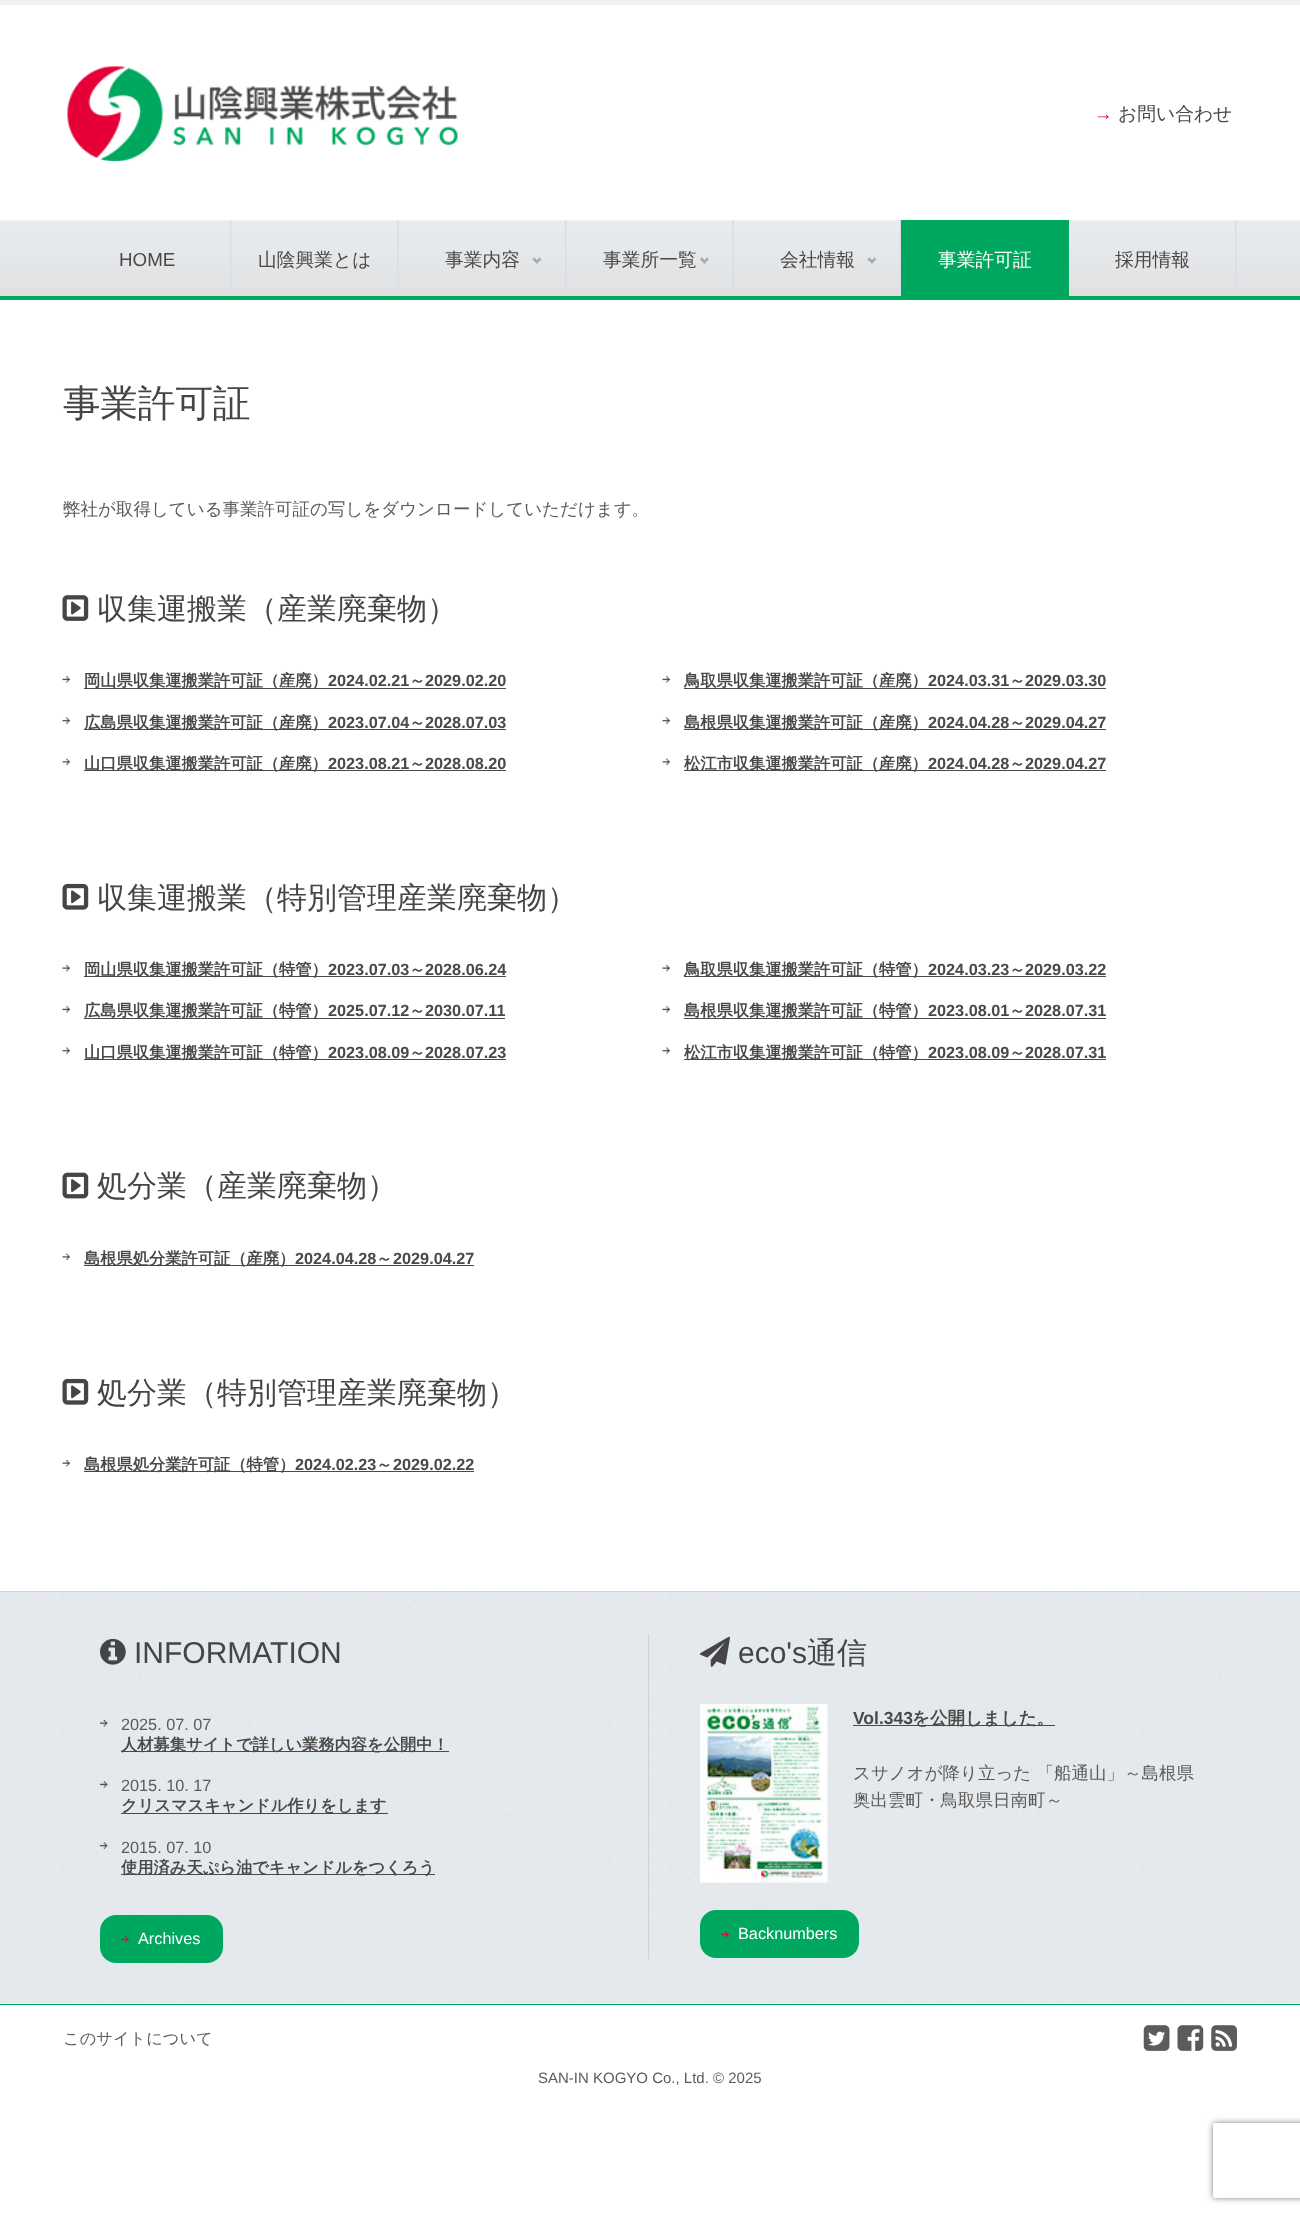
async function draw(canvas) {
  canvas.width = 1300
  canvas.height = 2215
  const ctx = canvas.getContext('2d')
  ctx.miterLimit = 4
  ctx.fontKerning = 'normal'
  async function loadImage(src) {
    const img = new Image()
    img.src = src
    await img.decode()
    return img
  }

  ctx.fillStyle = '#fff'
  ctx.fillRect(0, 0, 1300, 2215)
  ctx.fillStyle = '#f0f2f4'
  ctx.fillRect(0, 0, 1300, 5)
  ctx.drawImage(await loadImage('image0.png'), 67, 66, 391, 96)
  ctx.font = '18.75px Liberation Sans'
  ctx.fillStyle = '#e50038'
  ctx.fillText('→', 1094, 120)
  ctx.font = '500 18.75px WenQuanYi Zen Hei'
  ctx.fillStyle = '#4b4848'
  ctx.fillText('お問い合わせ', 1118, 120)
  ctx.fillStyle = '#e0e0e0'
  ctx.fillRect(0, 288, 1300, 8)
  ctx.drawImage(await loadImage('image1.png'), 0, 220, 1300, 68)
  ctx.fillStyle = '#00a85f'
  ctx.fillRect(0, 296, 1300, 4)
  ctx.drawImage(await loadImage('image2.png'), 230, 220, 2, 70)
  ctx.font = '18.75px Liberation Sans'
  ctx.fillStyle = '#4b4848'
  ctx.fillText('HOME', 119, 266)
  ctx.drawImage(await loadImage('image3.png'), 397, 220, 2, 70)
  ctx.font = '500 18.75px WenQuanYi Zen Hei'
  ctx.fillText('山陰興業とは', 258, 266)
  ctx.drawImage(await loadImage('image2.png'), 565, 220, 2, 70)
  ctx.fillText('事業内容', 445, 266)
  ctx.drawImage(await loadImage('image4.png'), 532, 257, 10, 7)
  ctx.drawImage(await loadImage('image3.png'), 732, 220, 2, 70)
  ctx.fillText('事業所一覧', 603, 266)
  ctx.drawImage(await loadImage('image5.png'), 700, 257, 9, 7)
  ctx.drawImage(await loadImage('image6.png'), 900, 220, 1, 70)
  ctx.fillText('会社情報', 780, 266)
  ctx.drawImage(await loadImage('image7.png'), 867, 257, 10, 7)
  ctx.fillStyle = '#00a85f'
  ctx.fillRect(901, 220, 168, 76)
  ctx.fillStyle = '#fff'
  ctx.fillText('事業許可証', 938, 266)
  ctx.drawImage(await loadImage('image2.png'), 1235, 220, 2, 70)
  ctx.fillStyle = '#4b4848'
  ctx.fillText('採用情報', 1115, 266)
  ctx.font = '500 37.5px WenQuanYi Zen Hei'
  ctx.fillStyle = '#454545'
  ctx.fillText('事業許可証', 63, 416)
  ctx.font = '500 17.5px WenQuanYi Zen Hei'
  ctx.fillStyle = '#5d5a5a'
  ctx.fillText('弊社が取得している事業許可証の写しをダウンロードしていただけます。', 63, 515)
  ctx.drawImage(await loadImage('image8.png'), 62, 595, 27, 26)
  ctx.font = '500 30px WenQuanYi Zen Hei'
  ctx.fillStyle = '#454545'
  ctx.fillText('収集運搬業（産業廃棄物）', 97, 619)
  ctx.drawImage(await loadImage('image9.png'), 62, 676, 8, 7)
  ctx.fillStyle = '#4b4848'
  ctx.fillRect(84, 688, 422, 1)
  ctx.font = 'bold 16.25px WenQuanYi Zen Hei'
  ctx.fillText('岡山県収集運搬業許可証（産廃）', 84, 686)
  ctx.font = 'bold 16.25px Liberation Sans'
  ctx.fillText('2024.02.21', 328, 686)
  ctx.font = 'bold 16.25px WenQuanYi Zen Hei'
  ctx.fillText('～', 409, 686)
  ctx.font = 'bold 16.25px Liberation Sans'
  ctx.fillText('2029.02.20', 425, 686)
  ctx.drawImage(await loadImage('image10.png'), 62, 717, 8, 7)
  ctx.fillRect(84, 729, 422, 1)
  ctx.font = 'bold 16.25px WenQuanYi Zen Hei'
  ctx.fillText('広島県収集運搬業許可証（産廃）', 84, 728)
  ctx.font = 'bold 16.25px Liberation Sans'
  ctx.fillText('2023.07.04', 328, 728)
  ctx.font = 'bold 16.25px WenQuanYi Zen Hei'
  ctx.fillText('～', 409, 728)
  ctx.font = 'bold 16.25px Liberation Sans'
  ctx.fillText('2028.07.03', 425, 728)
  ctx.drawImage(await loadImage('image11.png'), 62, 758, 8, 7)
  ctx.fillRect(84, 770, 422, 1)
  ctx.font = 'bold 16.25px WenQuanYi Zen Hei'
  ctx.fillText('山口県収集運搬業許可証（産廃）', 84, 769)
  ctx.font = 'bold 16.25px Liberation Sans'
  ctx.fillText('2023.08.21', 328, 769)
  ctx.font = 'bold 16.25px WenQuanYi Zen Hei'
  ctx.fillText('～', 409, 769)
  ctx.font = 'bold 16.25px Liberation Sans'
  ctx.fillText('2028.08.20', 425, 769)
  ctx.drawImage(await loadImage('image12.png'), 662, 676, 8, 7)
  ctx.fillRect(684, 688, 422, 1)
  ctx.font = 'bold 16.25px WenQuanYi Zen Hei'
  ctx.fillText('鳥取県収集運搬業許可証（産廃）', 684, 686)
  ctx.font = 'bold 16.25px Liberation Sans'
  ctx.fillText('2024.03.31', 928, 686)
  ctx.font = 'bold 16.25px WenQuanYi Zen Hei'
  ctx.fillText('～', 1009, 686)
  ctx.font = 'bold 16.25px Liberation Sans'
  ctx.fillText('2029.03.30', 1025, 686)
  ctx.drawImage(await loadImage('image13.png'), 662, 717, 8, 7)
  ctx.fillRect(684, 729, 422, 1)
  ctx.font = 'bold 16.25px WenQuanYi Zen Hei'
  ctx.fillText('島根県収集運搬業許可証（産廃）', 684, 728)
  ctx.font = 'bold 16.25px Liberation Sans'
  ctx.fillText('2024.04.28', 928, 728)
  ctx.font = 'bold 16.25px WenQuanYi Zen Hei'
  ctx.fillText('～', 1009, 728)
  ctx.font = 'bold 16.25px Liberation Sans'
  ctx.fillText('2029.04.27', 1025, 728)
  ctx.drawImage(await loadImage('image14.png'), 662, 758, 8, 7)
  ctx.fillRect(684, 770, 422, 1)
  ctx.font = 'bold 16.25px WenQuanYi Zen Hei'
  ctx.fillText('松江市収集運搬業許可証（産廃）', 684, 769)
  ctx.font = 'bold 16.25px Liberation Sans'
  ctx.fillText('2024.04.28', 928, 769)
  ctx.font = 'bold 16.25px WenQuanYi Zen Hei'
  ctx.fillText('～', 1009, 769)
  ctx.font = 'bold 16.25px Liberation Sans'
  ctx.fillText('2029.04.27', 1025, 769)
  ctx.drawImage(await loadImage('image15.png'), 62, 883, 27, 27)
  ctx.font = '500 30px WenQuanYi Zen Hei'
  ctx.fillStyle = '#454545'
  ctx.fillText('収集運搬業（特別管理産業廃棄物）', 97, 908)
  ctx.drawImage(await loadImage('image16.png'), 62, 965, 8, 7)
  ctx.fillStyle = '#4b4848'
  ctx.fillRect(84, 976, 422, 1)
  ctx.font = 'bold 16.25px WenQuanYi Zen Hei'
  ctx.fillText('岡山県収集運搬業許可証（特管）', 84, 975)
  ctx.font = 'bold 16.25px Liberation Sans'
  ctx.fillText('2023.07.03', 328, 975)
  ctx.font = 'bold 16.25px WenQuanYi Zen Hei'
  ctx.fillText('～', 409, 975)
  ctx.font = 'bold 16.25px Liberation Sans'
  ctx.fillText('2028.06.24', 425, 975)
  ctx.drawImage(await loadImage('image9.png'), 62, 1006, 8, 7)
  ctx.fillRect(84, 1018, 421, 1)
  ctx.font = 'bold 16.25px WenQuanYi Zen Hei'
  ctx.fillText('広島県収集運搬業許可証（特管）', 84, 1016)
  ctx.font = 'bold 16.25px Liberation Sans'
  ctx.fillText('2025.07.12', 328, 1016)
  ctx.font = 'bold 16.25px WenQuanYi Zen Hei'
  ctx.fillText('～', 409, 1016)
  ctx.font = 'bold 16.25px Liberation Sans'
  ctx.fillText('2030.07.11', 425, 1016)
  ctx.drawImage(await loadImage('image10.png'), 62, 1047, 8, 7)
  ctx.fillRect(84, 1059, 422, 1)
  ctx.font = 'bold 16.25px WenQuanYi Zen Hei'
  ctx.fillText('山口県収集運搬業許可証（特管）', 84, 1058)
  ctx.font = 'bold 16.25px Liberation Sans'
  ctx.fillText('2023.08.09', 328, 1058)
  ctx.font = 'bold 16.25px WenQuanYi Zen Hei'
  ctx.fillText('～', 409, 1058)
  ctx.font = 'bold 16.25px Liberation Sans'
  ctx.fillText('2028.07.23', 425, 1058)
  ctx.drawImage(await loadImage('image17.png'), 662, 965, 8, 7)
  ctx.fillRect(684, 976, 422, 1)
  ctx.font = 'bold 16.25px WenQuanYi Zen Hei'
  ctx.fillText('鳥取県収集運搬業許可証（特管）', 684, 975)
  ctx.font = 'bold 16.25px Liberation Sans'
  ctx.fillText('2024.03.23', 928, 975)
  ctx.font = 'bold 16.25px WenQuanYi Zen Hei'
  ctx.fillText('～', 1009, 975)
  ctx.font = 'bold 16.25px Liberation Sans'
  ctx.fillText('2029.03.22', 1025, 975)
  ctx.drawImage(await loadImage('image12.png'), 662, 1006, 8, 7)
  ctx.fillRect(684, 1018, 422, 1)
  ctx.font = 'bold 16.25px WenQuanYi Zen Hei'
  ctx.fillText('島根県収集運搬業許可証（特管）', 684, 1016)
  ctx.font = 'bold 16.25px Liberation Sans'
  ctx.fillText('2023.08.01', 928, 1016)
  ctx.font = 'bold 16.25px WenQuanYi Zen Hei'
  ctx.fillText('～', 1009, 1016)
  ctx.font = 'bold 16.25px Liberation Sans'
  ctx.fillText('2028.07.31', 1025, 1016)
  ctx.drawImage(await loadImage('image13.png'), 662, 1047, 8, 7)
  ctx.fillRect(684, 1059, 422, 1)
  ctx.font = 'bold 16.25px WenQuanYi Zen Hei'
  ctx.fillText('松江市収集運搬業許可証（特管）', 684, 1058)
  ctx.font = 'bold 16.25px Liberation Sans'
  ctx.fillText('2023.08.09', 928, 1058)
  ctx.font = 'bold 16.25px WenQuanYi Zen Hei'
  ctx.fillText('～', 1009, 1058)
  ctx.font = 'bold 16.25px Liberation Sans'
  ctx.fillText('2028.07.31', 1025, 1058)
  ctx.drawImage(await loadImage('image18.png'), 62, 1172, 27, 27)
  ctx.font = '500 30px WenQuanYi Zen Hei'
  ctx.fillStyle = '#454545'
  ctx.fillText('処分業（産業廃棄物）', 97, 1196)
  ctx.drawImage(await loadImage('image11.png'), 62, 1253, 8, 7)
  ctx.fillStyle = '#4b4848'
  ctx.fillRect(84, 1265, 390, 1)
  ctx.font = 'bold 16.25px WenQuanYi Zen Hei'
  ctx.fillText('島根県処分業許可証（産廃）', 84, 1264)
  ctx.font = 'bold 16.25px Liberation Sans'
  ctx.fillText('2024.04.28', 295, 1264)
  ctx.font = 'bold 16.25px WenQuanYi Zen Hei'
  ctx.fillText('～', 376, 1264)
  ctx.font = 'bold 16.25px Liberation Sans'
  ctx.fillText('2029.04.27', 393, 1264)
  ctx.drawImage(await loadImage('image15.png'), 62, 1378, 27, 27)
  ctx.font = '500 30px WenQuanYi Zen Hei'
  ctx.fillStyle = '#454545'
  ctx.fillText('処分業（特別管理産業廃棄物）', 97, 1403)
  ctx.drawImage(await loadImage('image16.png'), 62, 1460, 8, 7)
  ctx.fillStyle = '#4b4848'
  ctx.fillRect(84, 1471, 390, 1)
  ctx.font = 'bold 16.25px WenQuanYi Zen Hei'
  ctx.fillText('島根県処分業許可証（特管）', 84, 1470)
  ctx.font = 'bold 16.25px Liberation Sans'
  ctx.fillText('2024.02.23', 295, 1470)
  ctx.font = 'bold 16.25px WenQuanYi Zen Hei'
  ctx.fillText('～', 376, 1470)
  ctx.font = 'bold 16.25px Liberation Sans'
  ctx.fillText('2029.02.22', 393, 1470)
  ctx.drawImage(await loadImage('image19.png'), 0, 1592, 1300, 412)
  ctx.fillStyle = '#d2d1d1'
  ctx.fillRect(0, 1591, 1300, 1)
  ctx.drawImage(await loadImage('image20.png'), 100, 1638, 26, 27)
  ctx.font = '30px Liberation Sans'
  ctx.fillStyle = '#454545'
  ctx.fillText('INFORMATION', 134, 1663)
  ctx.drawImage(await loadImage('image21.png'), 100, 1720, 8, 7)
  ctx.font = '16.25px Liberation Sans'
  ctx.fillStyle = '#5d5a5a'
  ctx.fillText('2025. 07. 07', 121, 1730)
  ctx.fillStyle = '#4b4848'
  ctx.fillRect(121, 1751, 328, 1)
  ctx.font = 'bold 16.25px WenQuanYi Zen Hei'
  ctx.fillText('人材募集サイトで詳しい業務内容を公開中！', 121, 1750)
  ctx.drawImage(await loadImage('image22.png'), 100, 1781, 8, 7)
  ctx.font = '16.25px Liberation Sans'
  ctx.fillStyle = '#5d5a5a'
  ctx.fillText('2015. 10. 17', 121, 1791)
  ctx.fillStyle = '#4b4848'
  ctx.fillRect(121, 1813, 267, 1)
  ctx.font = 'bold 16.25px WenQuanYi Zen Hei'
  ctx.fillText('クリスマスキャンドル作りをします', 121, 1811)
  ctx.drawImage(await loadImage('image23.png'), 100, 1842, 8, 7)
  ctx.font = '16.25px Liberation Sans'
  ctx.fillStyle = '#5d5a5a'
  ctx.fillText('2015. 07. 10', 121, 1853)
  ctx.fillStyle = '#4b4848'
  ctx.fillRect(121, 1874, 314, 1)
  ctx.font = 'bold 16.25px WenQuanYi Zen Hei'
  ctx.fillText('使用済み天ぷら油でキャンドルをつくろう', 121, 1873)
  ctx.fillStyle = '#00a85f'
  ctx.beginPath()
  ctx.roundRect(100, 1915, 123, 48, 16)
  ctx.fill()
  ctx.drawImage(await loadImage('image24.png'), 121, 1936, 8, 7)
  ctx.font = '16.25px Liberation Sans'
  ctx.fillStyle = '#fff'
  ctx.fillText('Archives', 138, 1944)
  ctx.fillStyle = '#d2d1d1'
  ctx.fillRect(648, 1634, 1, 325)
  ctx.drawImage(await loadImage('image25.png'), 700, 1636, 30, 31)
  ctx.font = '30px Liberation Sans'
  ctx.fillStyle = '#454545'
  ctx.fillText('eco\'s', 738, 1663)
  ctx.font = '500 30px WenQuanYi Zen Hei'
  ctx.fillText('通信', 807, 1663)
  ctx.drawImage(await loadImage('image26.png'), 700, 1704, 128, 179)
  ctx.font = 'bold 17.5px Liberation Sans'
  ctx.fillStyle = '#4b4848'
  ctx.fillText('Vol.343', 853, 1724)
  ctx.fillRect(853, 1725, 202, 1)
  ctx.font = 'bold 17.5px WenQuanYi Zen Hei'
  ctx.fillText('を公開しました。', 912, 1724)
  ctx.font = '500 17.5px WenQuanYi Zen Hei'
  ctx.fillStyle = '#5d5a5a'
  ctx.fillText('スサノオが降り立った 「船通山」～島根県', 853, 1779)
  ctx.fillText('奥出雲町・鳥取県日南町～', 853, 1806)
  ctx.fillStyle = '#00a85f'
  ctx.beginPath()
  ctx.roundRect(700, 1910, 159, 48, 16)
  ctx.fill()
  ctx.drawImage(await loadImage('image24.png'), 721, 1931, 8, 7)
  ctx.font = '16.25px Liberation Sans'
  ctx.fillStyle = '#fff'
  ctx.fillText('Backnumbers', 738, 1939)
  ctx.fillStyle = '#00a85f'
  ctx.fillRect(0, 2004, 1300, 1)
  ctx.font = '500 16.25px WenQuanYi Zen Hei'
  ctx.fillStyle = '#5d5a5a'
  ctx.fillText('このサイトについて', 63, 2044)
  ctx.drawImage(await loadImage('image27.png'), 1143, 2025, 27, 26)
  ctx.drawImage(await loadImage('image28.png'), 1177, 2025, 27, 26)
  ctx.drawImage(await loadImage('image29.png'), 1211, 2025, 26, 26)
  ctx.font = '15px Liberation Sans'
  ctx.fillText('SAN-IN KOGYO Co., Ltd. © 2025', 538, 2083)
  ctx.save()
  ctx.beginPath()
  ctx.moveTo(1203, 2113)
  ctx.lineTo(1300, 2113)
  ctx.lineTo(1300, 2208)
  ctx.lineTo(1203, 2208)
  ctx.closePath()
  ctx.moveTo(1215.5, 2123)
  ctx.lineTo(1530.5, 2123)
  ctx.bezierCurveTo(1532, 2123, 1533, 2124, 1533, 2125.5)
  ctx.lineTo(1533, 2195.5)
  ctx.bezierCurveTo(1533, 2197, 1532, 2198, 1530.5, 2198)
  ctx.lineTo(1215.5, 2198)
  ctx.bezierCurveTo(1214, 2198, 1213, 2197, 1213, 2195.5)
  ctx.lineTo(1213, 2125.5)
  ctx.bezierCurveTo(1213, 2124, 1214, 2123, 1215.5, 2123)
  ctx.closePath()
  ctx.clip('evenodd')
  ctx.fillStyle = '#808080'
  ctx.filter = 'blur(3px)'
  ctx.beginPath()
  ctx.roundRect(1213, 2123, 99, 75, 2.5)
  ctx.fill()
  ctx.filter = 'none'
  ctx.restore()
}

draw(document.querySelector('canvas'))
